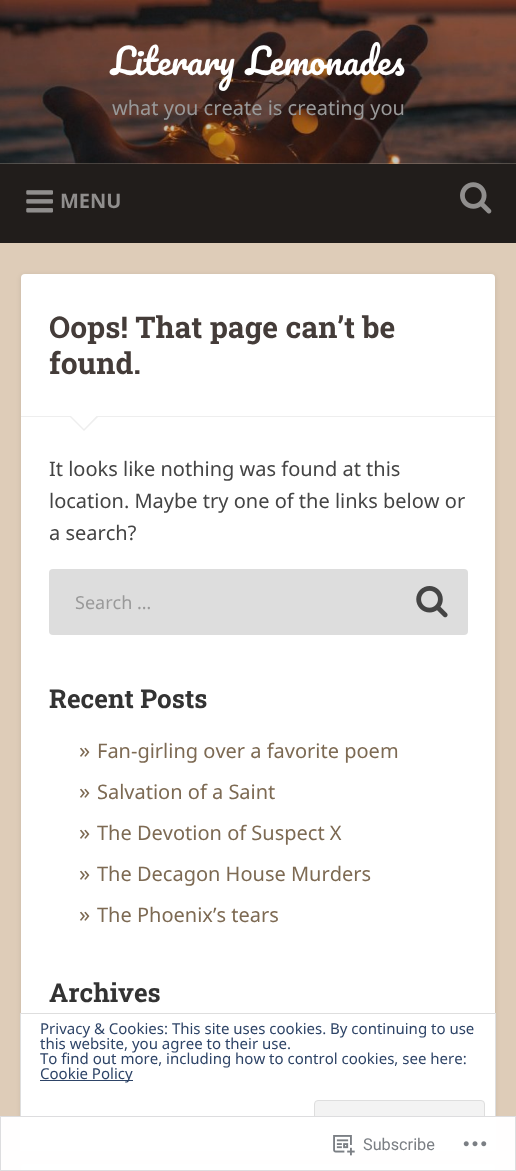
async function draw(canvas) {
  canvas.width = 516
  canvas.height = 1171
  const ctx = canvas.getContext('2d')
  ctx.miterLimit = 4
  ctx.fontKerning = 'none'
  async function loadImage(src) {
    const img = new Image()
    img.src = src
    await img.decode()
    return img
  }

  ctx.fillStyle = '#deccb8'
  ctx.fillRect(0, 0, 516, 1171)
  ctx.drawImage(await loadImage('image0.png'), 0, 0, 516, 164)
  ctx.wordSpacing = '2px'
  ctx.font = '35px Pacifico'
  ctx.fillStyle = '#fff'
  ctx.fillText('Literary Lemonades', 111, 75)
  ctx.wordSpacing = '0px'
  ctx.font = '20px Noto Sans'
  ctx.fillStyle = '#999'
  ctx.fillText('what you create is creating you', 112, 115)
  ctx.fillStyle = '#211d1b'
  ctx.fillRect(0, 164, 516, 79)
  ctx.drawImage(await loadImage('image1.png'), 26, 190, 27, 23)
  ctx.font = 'bold 20px Noto Sans'
  ctx.fillStyle = '#908e8d'
  ctx.fillText('MENU', 60, 208)
  ctx.drawImage(await loadImage('image2.png'), 460, 182, 32, 32)
  ctx.fillStyle = '#0000001a'
  ctx.filter = 'blur(2.5px)'
  ctx.beginPath()
  ctx.roundRect(21, 275, 474, 871, 4)
  ctx.fill()
  ctx.filter = 'none'
  ctx.fillStyle = '#fff'
  ctx.beginPath()
  ctx.roundRect(21, 274, 474, 871, 4)
  ctx.fill()
  ctx.fillStyle = '#eee'
  ctx.fillRect(21, 416, 474, 1)
  ctx.font = 'bold 30px Roboto Slab'
  ctx.fillStyle = '#443c39'
  ctx.fillText('Oops! That page can’t be', 49, 338)
  ctx.fillText('found.', 49, 374)
  ctx.fillStyle = '#eee'
  ctx.beginPath()
  ctx.moveTo(69, 416)
  ctx.lineTo(99, 416)
  ctx.lineTo(84, 431)
  ctx.closePath()
  ctx.fill()
  ctx.fillStyle = '#fff'
  ctx.beginPath()
  ctx.moveTo(70, 415)
  ctx.lineTo(97.5, 415)
  ctx.lineTo(84, 429)
  ctx.closePath()
  ctx.fill()
  ctx.font = '20px Noto Sans'
  ctx.fillStyle = '#444'
  ctx.fillText('It looks like nothing was found at this', 49, 476)
  ctx.fillText('location. Maybe try one of the links below or', 49, 508)
  ctx.fillText('a search?', 49, 540)
  ctx.fillStyle = '#ddd'
  ctx.beginPath()
  ctx.roundRect(49, 569, 419, 66, 4)
  ctx.fill()
  ctx.font = '18px Noto Sans'
  ctx.fillStyle = '#999'
  ctx.fillText('Search …', 75, 609)
  ctx.drawImage(await loadImage('image3.png'), 416, 586, 32, 32)
  ctx.font = 'bold 26px Roboto Slab'
  ctx.fillStyle = '#333'
  ctx.fillText('Recent Posts', 49, 708)
  ctx.font = '22px Noto Sans'
  ctx.fillStyle = '#7d6a53'
  ctx.fillText('»', 79, 758)
  ctx.font = '20px Noto Sans'
  ctx.fillText('Fan-girling over a favorite poem', 97, 758)
  ctx.font = '22px Noto Sans'
  ctx.fillText('»', 79, 799)
  ctx.font = '20px Noto Sans'
  ctx.fillText('Salvation of a Saint', 97, 799)
  ctx.font = '22px Noto Sans'
  ctx.fillText('»', 79, 840)
  ctx.font = '20px Noto Sans'
  ctx.fillText('The Devotion of Suspect X', 97, 840)
  ctx.font = '22px Noto Sans'
  ctx.fillText('»', 79, 881)
  ctx.font = '20px Noto Sans'
  ctx.fillText('The Decagon House Murders', 97, 881)
  ctx.font = '22px Noto Sans'
  ctx.fillText('»', 79, 922)
  ctx.font = '20px Noto Sans'
  ctx.fillText('The Phoenix’s tears', 97, 922)
  ctx.font = 'bold 26px Roboto Slab'
  ctx.fillStyle = '#333'
  ctx.fillText('Archives', 49, 1002)
  ctx.fillStyle = '#0000001a'
  ctx.filter = 'blur(2.5px)'
  ctx.beginPath()
  ctx.roundRect(21, 1165, 474, 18, 4)
  ctx.fill()
  ctx.filter = 'none'
  ctx.fillStyle = '#fff'
  ctx.beginPath()
  ctx.roundRect(21, 1164, 474, 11, 4)
  ctx.fill()
  ctx.fillRect(21, 1141, 474, 9)
  ctx.strokeStyle = '#dedede'
  ctx.strokeRect(20.5, 1013.5, 475, 137)
  ctx.font = '15px Noto Sans'
  ctx.fillStyle = '#2e4467'
  ctx.fillText('Privacy & Cookies: This site uses cookies. By continuing to use', 40, 1034)
  ctx.fillText('this website, you agree to their use.', 40, 1049)
  ctx.fillText('To find out more, including how to control cookies, see here:', 40, 1064)
  ctx.fillRect(40, 1080, 93, 1)
  ctx.fillText('Cookie Policy', 40, 1079)
  ctx.fillStyle = '#f3f3f3'
  ctx.beginPath()
  ctx.roundRect(314.5, 1100.5, 170, 39, 3.5)
  ctx.fill()
  ctx.stroke()
  ctx.fillStyle = '#fffffffa'
  ctx.fillRect(0, 1116, 516, 55)
  ctx.strokeStyle = '#dcdcdefa'
  ctx.strokeRect(0.5, 1116.5, 515, 54)
  ctx.drawImage(await loadImage('image4.png'), 333, 1135, 22, 21)
  ctx.font = '16.25px Roboto'
  ctx.fillStyle = '#7b7f84'
  ctx.fillText('Subscribe', 363, 1150)
  ctx.drawImage(await loadImage('image5.png'), 463, 1141, 24, 6)
}

draw(document.querySelector('canvas'))
